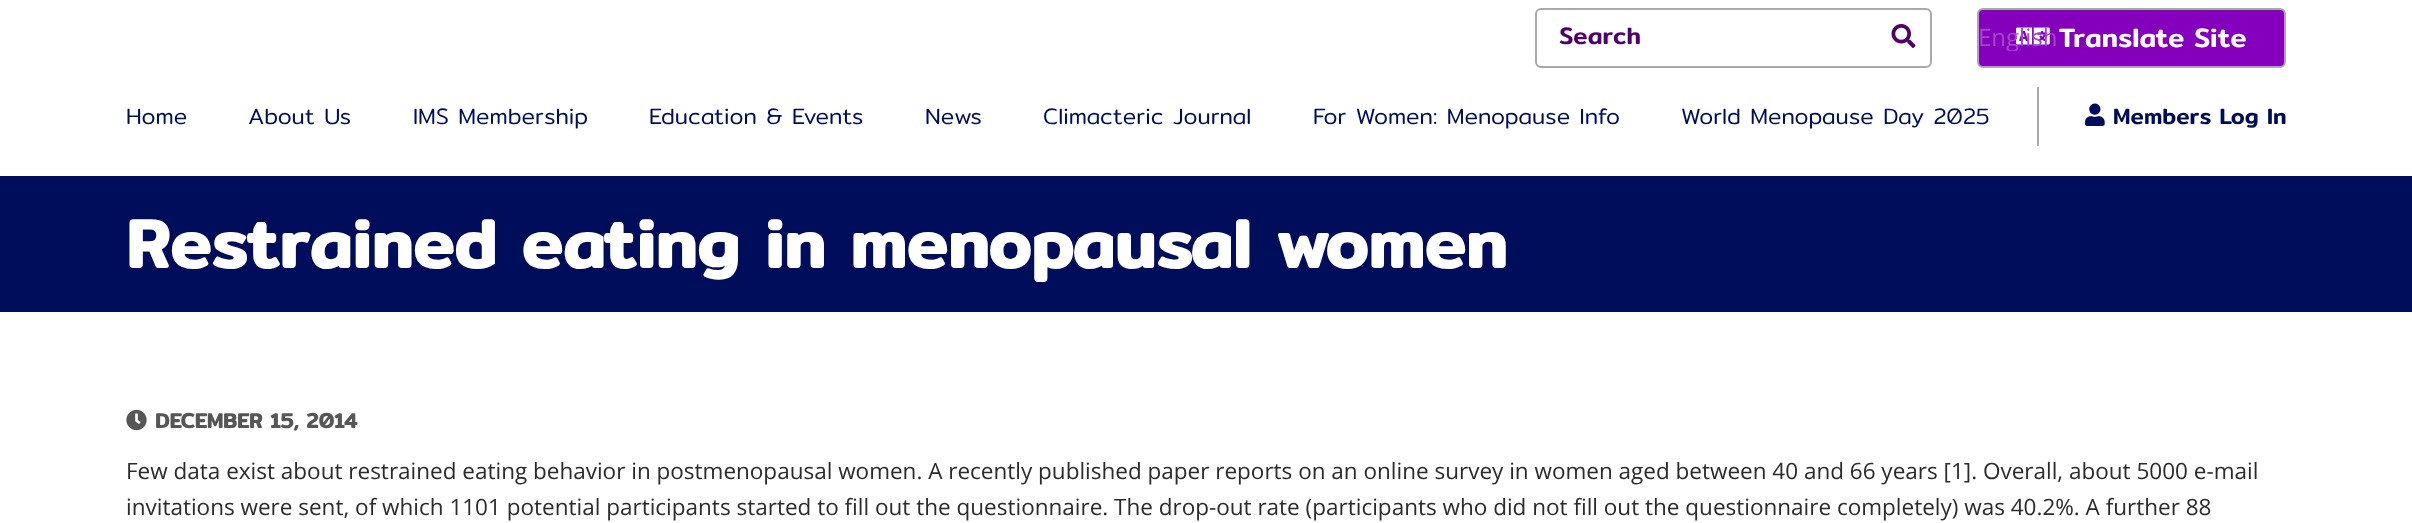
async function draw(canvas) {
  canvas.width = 2412
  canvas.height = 523
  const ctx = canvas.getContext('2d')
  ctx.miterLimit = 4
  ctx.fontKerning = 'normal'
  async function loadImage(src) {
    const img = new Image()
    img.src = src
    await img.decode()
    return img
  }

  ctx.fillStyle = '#fff'
  ctx.fillRect(0, 0, 2412, 523)
  ctx.beginPath()
  ctx.roundRect(1536, 9, 395, 58, 5)
  ctx.strokeStyle = '#a9a9a9'
  ctx.lineWidth = 2
  ctx.stroke()
  ctx.font = '500 24px Mitr'
  ctx.fillStyle = '#4f006f'
  ctx.fillText('Search', 1559, 44)
  ctx.drawImage(await loadImage('image0.png'), 1891, 24, 25, 24)
  ctx.fillStyle = '#8500bc'
  ctx.beginPath()
  ctx.roundRect(1978, 9, 307, 58, 5)
  ctx.fill()
  ctx.stroke()
  ctx.drawImage(await loadImage('image1.png'), 2016, 27, 34, 18)
  ctx.save()
  ctx.beginPath()
  ctx.rect(1979, 24, 306, 27)
  ctx.clip()
  ctx.font = '24px Open Sans'
  ctx.fillStyle = '#a644ce'
  ctx.fillText('English', 1978, 46)
  ctx.restore()
  ctx.font = '500 27px Mitr'
  ctx.fillStyle = '#fff'
  ctx.fillText('Translate Site', 2059, 47)
  ctx.fillStyle = '#a9a9a9'
  ctx.fillRect(2037, 87, 2, 59)
  ctx.font = '300 22.5px Mitr'
  ctx.fillStyle = '#000d5b'
  ctx.fillText('Home', 126, 124)
  ctx.fillText('About Us', 248, 124)
  ctx.fillText('IMS Membership', 413, 124)
  ctx.fillText('Education & Events', 649, 124)
  ctx.fillText('News', 925, 124)
  ctx.fillText('Climacteric Journal', 1043, 124)
  ctx.fillText('For Women: Menopause Info', 1313, 124)
  ctx.fillText('World Menopause Day 2025', 1681, 124)
  ctx.drawImage(await loadImage('image2.png'), 2085, 103, 20, 23)
  ctx.font = '500 22.5px Mitr'
  ctx.fillText('Members Log In', 2113, 124)
  ctx.fillRect(0, 176, 2412, 136)
  ctx.font = 'bold 69px Mitr'
  ctx.fillStyle = '#fff'
  ctx.fillText('Restrained eating in menopausal women', 126, 268)
  ctx.drawImage(await loadImage('image3.png'), 126, 409, 21, 22)
  ctx.font = 'bold 21px Mitr'
  ctx.fillStyle = '#565656'
  ctx.fillText('DECEMBER 15, 2014', 155, 428)
  ctx.font = '22.5px Open Sans'
  ctx.fillStyle = '#2b2b2b'
  ctx.fillText('Few data exist about restrained eating behavior in postmenopausal women. A recently published paper reports on an online survey in women aged between 40 and 66 years [1]. Overall, about 5000 e-mail', 126, 479)
  ctx.fillText('invitations were sent, of which 1101 potential participants started to fill out the questionnaire. The drop-out rate (participants who did not fill out the questionnaire completely) was 40.2%. A further 88', 126, 515)
}

draw(document.querySelector('canvas'))
